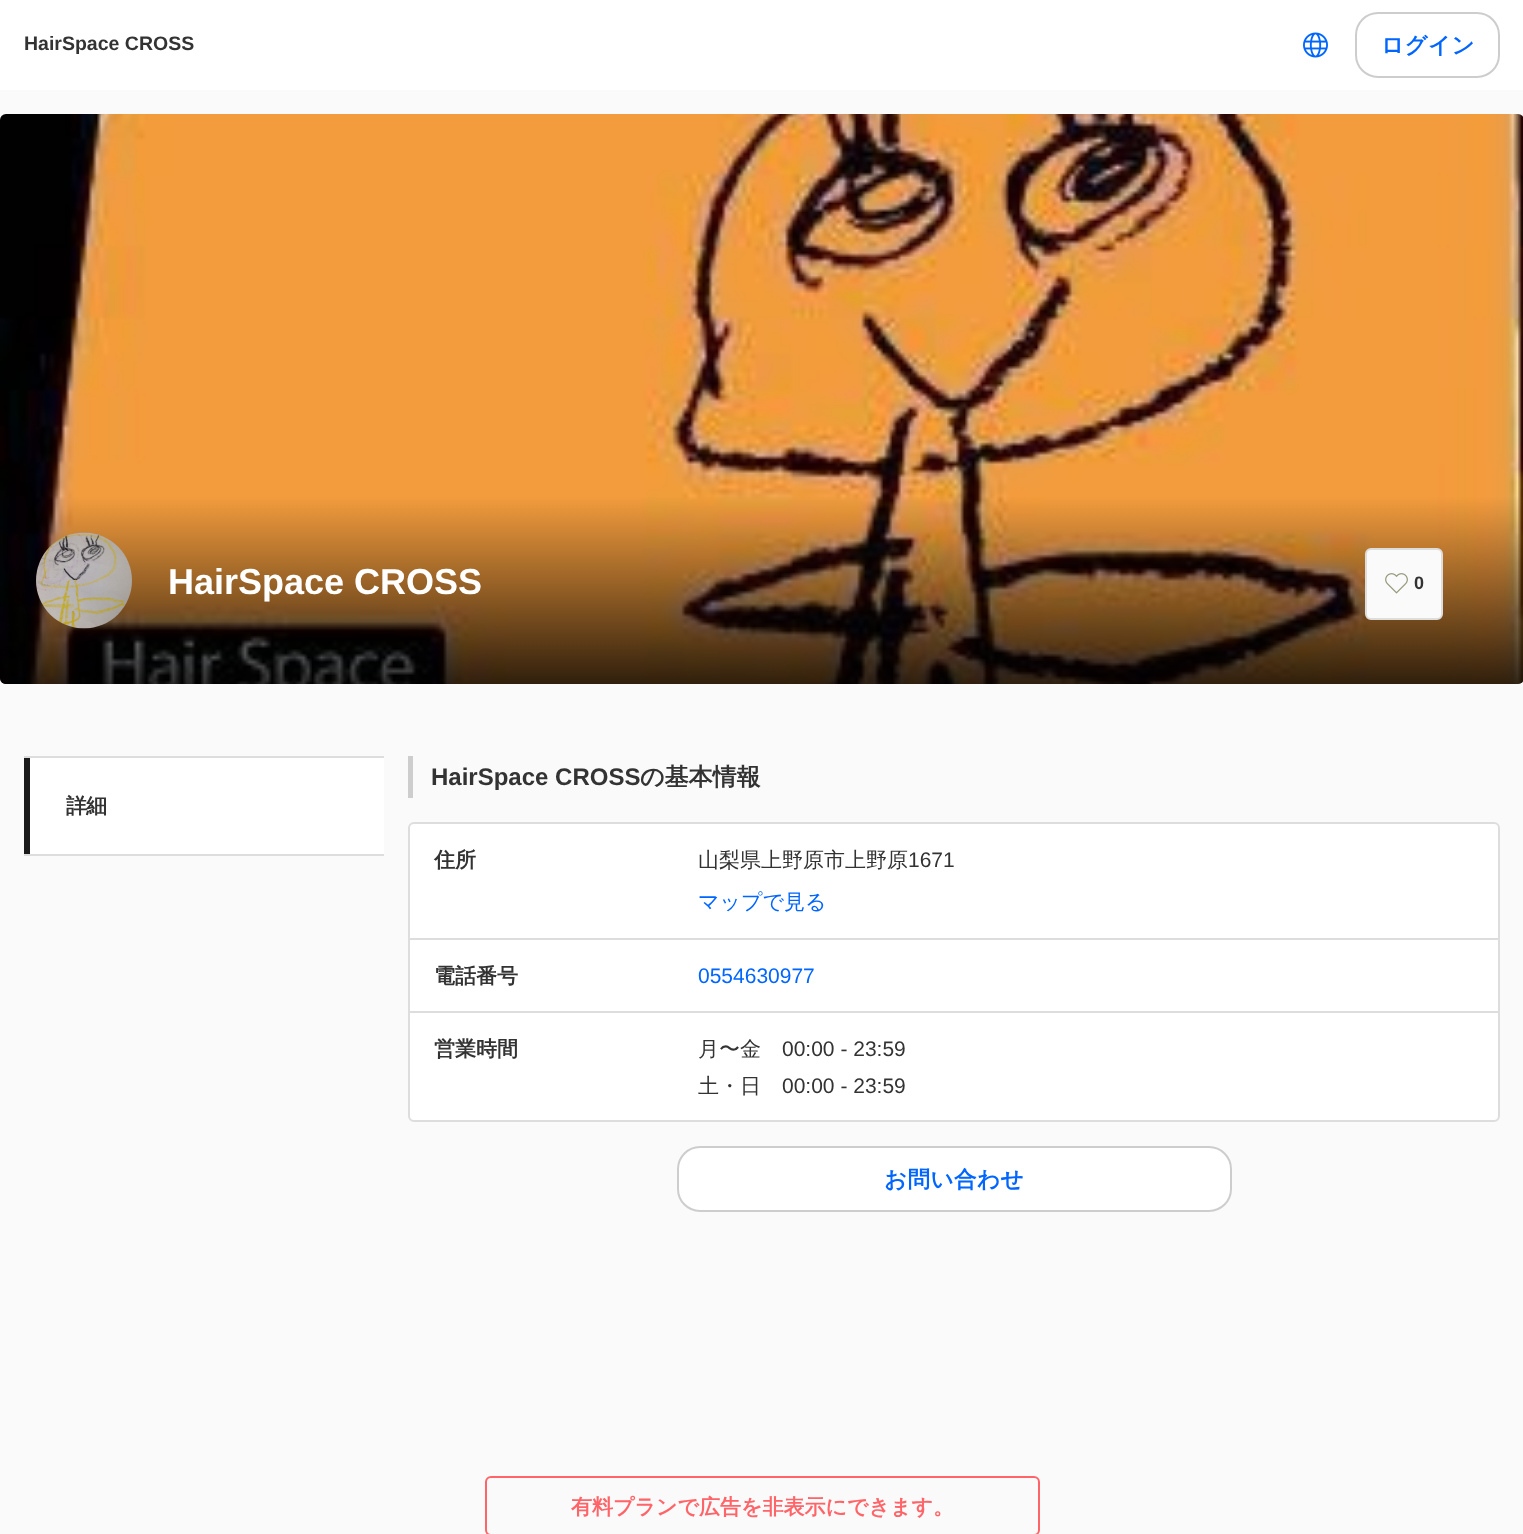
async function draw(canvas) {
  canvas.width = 1523
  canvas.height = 1534
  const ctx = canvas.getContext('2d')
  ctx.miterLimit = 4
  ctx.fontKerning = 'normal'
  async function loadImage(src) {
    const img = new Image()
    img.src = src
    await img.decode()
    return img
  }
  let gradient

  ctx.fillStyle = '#fafafa'
  ctx.fillRect(0, 0, 1523, 1534)
  ctx.fillStyle = '#fff'
  ctx.fillRect(0, 0, 1523, 90)
  ctx.font = 'bold 19.5px Liberation Sans'
  ctx.fillStyle = '#333'
  ctx.fillText('HairSpace CROSS', 24, 50)
  ctx.drawImage(await loadImage('image0.png'), 1303, 32, 25, 26)
  ctx.beginPath()
  ctx.roundRect(1356, 13, 143, 64, 22)
  ctx.strokeStyle = '#cdcdcd'
  ctx.lineWidth = 2
  ctx.stroke()
  ctx.letterSpacing = '0.5px'
  ctx.font = 'bold 22.5px WenQuanYi Zen Hei'
  ctx.fillStyle = '#06f'
  ctx.fillText('ログイン', 1381, 53)
  ctx.drawImage(await loadImage('image1.png'), 0, 114, 1523, 570)
  gradient = ctx.createLinearGradient(762, 496, 762, 684)
  gradient.addColorStop(0, '#00000000')
  gradient.addColorStop(1, '#000000cc')
  ctx.fillStyle = gradient
  ctx.beginPath()
  ctx.moveTo(0, 497)
  ctx.lineTo(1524, 497)
  ctx.lineTo(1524, 678)
  ctx.bezierCurveTo(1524, 681.5, 1521.5, 684, 1518, 684)
  ctx.lineTo(6, 684)
  ctx.bezierCurveTo(2.5, 684, 0, 681.5, 0, 678)
  ctx.closePath()
  ctx.fill()
  ctx.drawImage(await loadImage('image2.png'), 36, 532, 96, 97)
  ctx.letterSpacing = '0px'
  ctx.font = 'bold 36px Liberation Sans'
  ctx.fillStyle = '#fff'
  ctx.fillText('HairSpace CROSS', 168, 594)
  ctx.fillStyle = '#fafafa'
  ctx.beginPath()
  ctx.roundRect(1366, 549, 76, 70, 5)
  ctx.fill()
  ctx.strokeStyle = '#ddd'
  ctx.stroke()
  ctx.drawImage(await loadImage('image3.png'), 1385, 573, 23, 21)
  ctx.font = 'bold 18px Liberation Sans'
  ctx.fillStyle = '#333'
  ctx.fillText('0', 1414, 589)
  ctx.fillStyle = '#fff'
  ctx.fillRect(30, 758, 354, 96)
  ctx.fillStyle = '#ddd'
  ctx.fillRect(24, 854, 360, 2)
  ctx.fillRect(24, 756, 360, 2)
  ctx.fillStyle = '#1b1b1b'
  ctx.fillRect(24, 758, 6, 96)
  ctx.letterSpacing = '-1px'
  ctx.font = 'bold 21px WenQuanYi Zen Hei'
  ctx.fillStyle = '#333'
  ctx.fillText('詳細', 66, 813)
  ctx.fillStyle = '#cdcdcd'
  ctx.fillRect(408, 756, 5, 42)
  ctx.letterSpacing = '0px'
  ctx.font = 'bold 24px Liberation Sans'
  ctx.fillStyle = '#333'
  ctx.fillText('HairSpace CROSS', 431, 785)
  ctx.font = 'bold 24px WenQuanYi Zen Hei'
  ctx.fillText('の基本情報', 640, 785)
  ctx.fillStyle = '#fff'
  ctx.beginPath()
  ctx.roundRect(409, 823, 1090, 298, 5)
  ctx.fill()
  ctx.stroke()
  ctx.font = 'bold 21px WenQuanYi Zen Hei'
  ctx.fillStyle = '#333'
  ctx.fillText('住所', 434, 867)
  ctx.font = '500 21px WenQuanYi Zen Hei'
  ctx.fillText('山梨県上野原市上野原', 698, 867)
  ctx.font = '21px Liberation Sans'
  ctx.fillText('1671', 908, 867)
  ctx.font = '500 21px WenQuanYi Zen Hei'
  ctx.fillStyle = '#06f'
  ctx.fillText('マップで見る', 698, 909)
  ctx.fillStyle = '#ddd'
  ctx.fillRect(410, 938, 1089, 2)
  ctx.font = 'bold 21px WenQuanYi Zen Hei'
  ctx.fillStyle = '#333'
  ctx.fillText('電話番号', 434, 983)
  ctx.font = '21px Liberation Sans'
  ctx.fillStyle = '#06f'
  ctx.fillText('0554630977', 698, 983)
  ctx.fillStyle = '#ddd'
  ctx.fillRect(410, 1011, 1089, 2)
  ctx.font = 'bold 21px WenQuanYi Zen Hei'
  ctx.fillStyle = '#333'
  ctx.fillText('営業時間', 434, 1056)
  ctx.font = '500 21px WenQuanYi Zen Hei'
  ctx.fillText('月〜金', 698, 1056)
  ctx.font = '21px Liberation Sans'
  ctx.fillText('00:00 - 23:59', 782, 1056)
  ctx.font = '500 21px WenQuanYi Zen Hei'
  ctx.fillText('土・日', 698, 1093)
  ctx.font = '21px Liberation Sans'
  ctx.fillText('00:00 - 23:59', 782, 1093)
  ctx.fillStyle = '#fff'
  ctx.beginPath()
  ctx.roundRect(678, 1147, 553, 64, 22)
  ctx.fill()
  ctx.strokeStyle = '#cdcdcd'
  ctx.stroke()
  ctx.letterSpacing = '0.5px'
  ctx.font = 'bold 22.5px WenQuanYi Zen Hei'
  ctx.fillStyle = '#06f'
  ctx.fillText('お問い合わせ', 884, 1187)
  ctx.beginPath()
  ctx.roundRect(486, 1477, 553, 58, 5)
  ctx.strokeStyle = '#ff6469'
  ctx.stroke()
  ctx.letterSpacing = '0px'
  ctx.font = 'bold 21px WenQuanYi Zen Hei'
  ctx.fillStyle = '#ff6469'
  ctx.fillText('有料プランで広告を非表示にできます。', 571, 1514)
}

draw(document.querySelector('canvas'))
